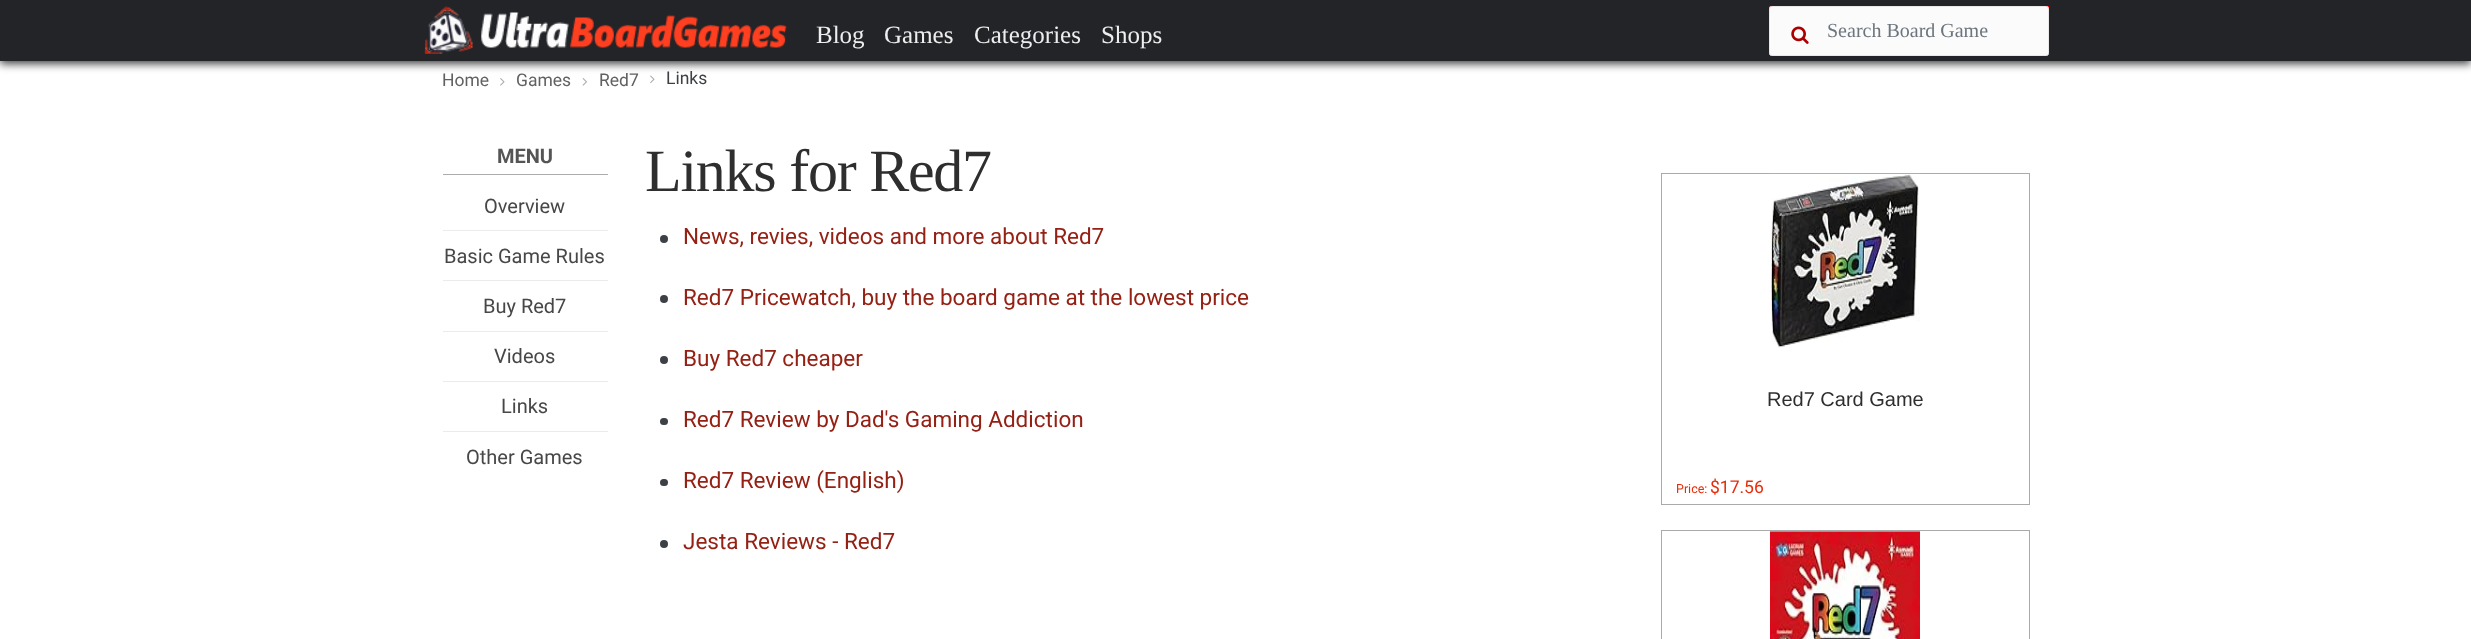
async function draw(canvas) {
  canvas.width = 2471
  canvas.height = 639
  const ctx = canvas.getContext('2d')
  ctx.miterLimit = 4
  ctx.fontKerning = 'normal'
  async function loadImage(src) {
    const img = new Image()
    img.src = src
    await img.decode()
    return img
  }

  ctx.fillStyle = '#fff'
  ctx.fillRect(0, 0, 2471, 639)
  ctx.drawImage(await loadImage('image4.png'), 650, 75, 5, 8)
  ctx.fillStyle = '#444'
  ctx.filter = 'blur(4px)'
  ctx.beginPath()
  ctx.rect(0, 3, 2471, 61)
  ctx.fill()
  ctx.filter = 'none'
  ctx.fillStyle = '#232428'
  ctx.fillRect(0, 0, 2471, 61)
  ctx.drawImage(await loadImage('image0.png'), 423, 6, 364, 49)
  ctx.font = '25px Liberation Serif'
  ctx.fillStyle = '#eee'
  ctx.fillText('Blog', 816, 43)
  ctx.fillText('Games', 884, 43)
  ctx.fillText('Categories', 974, 43)
  ctx.fillText('Shops', 1101, 43)
  ctx.fillStyle = '#f00'
  ctx.fillRect(1769, 6, 280, 3)
  ctx.fillStyle = '#fbfbfb'
  ctx.beginPath()
  ctx.roundRect(1769.5, 6.5, 279, 49, 2)
  ctx.fill()
  ctx.strokeStyle = '#e8e8e8'
  ctx.stroke()
  ctx.drawImage(await loadImage('image1.png'), 1791, 26, 18, 18)
  ctx.font = '20px Liberation Serif'
  ctx.fillStyle = '#6c757d'
  ctx.fillText('Search Board Game', 1827, 37)
  ctx.font = '17.5px Roboto'
  ctx.fillStyle = '#616161'
  ctx.fillText('Home', 442, 86)
  ctx.drawImage(await loadImage('image2.png'), 500, 78, 5, 8)
  ctx.fillText('Games', 516, 86)
  ctx.drawImage(await loadImage('image3.png'), 582, 78, 5, 8)
  ctx.fillText('Red7', 599, 86)
  ctx.fillStyle = '#3d4045'
  ctx.fillText('Links', 666, 84)
  ctx.fillStyle = '#adacac'
  ctx.fillRect(443, 174, 165, 1)
  ctx.font = 'bold 20px Roboto'
  ctx.fillStyle = '#555'
  ctx.fillText('MENU', 497, 163)
  ctx.fillStyle = '#ebebeb'
  ctx.fillRect(443, 230, 165, 1)
  ctx.font = '20px Roboto'
  ctx.fillStyle = '#474747'
  ctx.fillText('Overview', 484, 213)
  ctx.fillStyle = '#ebebeb'
  ctx.fillRect(443, 280, 165, 1)
  ctx.fillStyle = '#474747'
  ctx.fillText('Basic Game Rules', 444, 263)
  ctx.fillStyle = '#ebebeb'
  ctx.fillRect(443, 331, 165, 1)
  ctx.fillStyle = '#474747'
  ctx.fillText('Buy Red7', 483, 313)
  ctx.fillStyle = '#ebebeb'
  ctx.fillRect(443, 381, 165, 1)
  ctx.fillStyle = '#474747'
  ctx.fillText('Videos', 494, 363)
  ctx.fillStyle = '#ebebeb'
  ctx.fillRect(443, 431, 165, 1)
  ctx.fillStyle = '#474747'
  ctx.fillText('Links', 501, 413)
  ctx.fillText('Other Games', 466, 464)
  ctx.letterSpacing = '-1.25px'
  ctx.font = '60px Liberation Serif'
  ctx.fillStyle = '#2e2e2e'
  ctx.fillText('Links for Red7', 645, 191)
  ctx.fillStyle = '#3d4045'
  ctx.beginPath()
  ctx.arc(664, 239, 4, 0, 2 * Math.PI)
  ctx.fill()
  ctx.letterSpacing = '0px'
  ctx.font = '22.5px Roboto'
  ctx.fillStyle = '#952014'
  ctx.fillText('News, revies, videos and more about Red7', 683, 244)
  ctx.fillStyle = '#3d4045'
  ctx.beginPath()
  ctx.arc(664, 299, 4, 0, 2 * Math.PI)
  ctx.fill()
  ctx.fillStyle = '#952014'
  ctx.fillText('Red7 Pricewatch, buy the board game at the lowest price', 683, 305)
  ctx.fillStyle = '#3d4045'
  ctx.beginPath()
  ctx.arc(664, 360, 4, 0, 2 * Math.PI)
  ctx.fill()
  ctx.fillStyle = '#952014'
  ctx.fillText('Buy Red7 cheaper', 683, 366)
  ctx.fillStyle = '#3d4045'
  ctx.beginPath()
  ctx.roundRect(660, 418, 8, 7, 3.5)
  ctx.fill()
  ctx.fillStyle = '#952014'
  ctx.fillText('Red7 Review by Dad\'s Gaming Addiction', 683, 427)
  ctx.fillStyle = '#3d4045'
  ctx.beginPath()
  ctx.roundRect(660, 479, 8, 7, 3.5)
  ctx.fill()
  ctx.fillStyle = '#952014'
  ctx.fillText('Red7 Review (English)', 683, 488)
  ctx.fillStyle = '#3d4045'
  ctx.beginPath()
  ctx.arc(664, 544, 4, 0, 2 * Math.PI)
  ctx.fill()
  ctx.fillStyle = '#952014'
  ctx.fillText('Jesta Reviews - Red7', 683, 549)
  ctx.strokeStyle = '#aaa'
  ctx.strokeRect(1661.5, 173.5, 368, 331)
  ctx.drawImage(await loadImage('image5.png'), 1770, 173, 150, 175)
  ctx.font = '20px Liberation Sans'
  ctx.fillStyle = '#2e2e2e'
  ctx.fillText('Red7 Card Game', 1767, 406)
  ctx.font = '12.5px Roboto'
  ctx.fillStyle = '#e82b09'
  ctx.fillText('Price:', 1676, 493)
  ctx.font = '17.5px Roboto'
  ctx.fillText('$17.56', 1710, 493)
  ctx.strokeRect(1661.5, 530.5, 368, 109)
  ctx.drawImage(await loadImage('image6.png'), 1770, 531, 150, 108)
}

draw(document.querySelector('canvas'))
